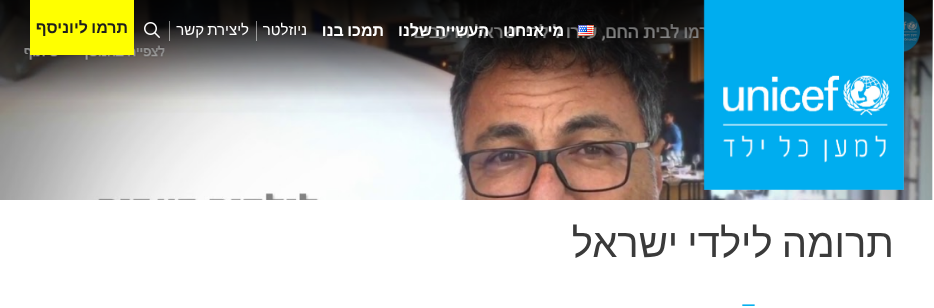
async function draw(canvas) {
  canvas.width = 934
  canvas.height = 308
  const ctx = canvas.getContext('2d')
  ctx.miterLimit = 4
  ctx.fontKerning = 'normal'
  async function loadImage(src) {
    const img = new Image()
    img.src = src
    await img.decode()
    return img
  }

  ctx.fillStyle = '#fff'
  ctx.fillRect(0, 0, 934, 308)
  ctx.drawImage(await loadImage('image0.png'), 0, 0, 933, 200)
  ctx.drawImage(await loadImage('image1.png'), 703, 0, 201, 190)
  ctx.drawImage(await loadImage('image2.png'), 578, 25, 16, 11)
  ctx.wordSpacing = '-1px'
  ctx.direction = 'rtl'
  ctx.font = 'bold 16px Liberation Sans'
  ctx.fillText('מי אנחנו', 564, 36)
  ctx.fillText('העשייה שלנו', 489, 36)
  ctx.fillText('תמכו בנו', 384, 36)
  ctx.wordSpacing = '0px'
  ctx.font = '15px Liberation Sans'
  ctx.fillText('ניוזלטר', 307, 35)
  ctx.fillStyle = '#ffffff80'
  ctx.fillRect(256, 21, 1, 20)
  ctx.wordSpacing = '-1px'
  ctx.fillStyle = '#fff'
  ctx.fillText('ליצירת קשר', 249, 35)
  ctx.fillStyle = '#ffffff80'
  ctx.fillRect(169, 21, 1, 20)
  ctx.drawImage(await loadImage('image3.png'), 144, 22, 16, 16)
  ctx.fillStyle = '#ff0'
  ctx.fillRect(30, 0, 104, 55)
  ctx.font = 'bold 16px Liberation Sans'
  ctx.fillStyle = '#1e1e1e'
  ctx.fillText('תרמו ליוניסף', 128, 33)
  ctx.wordSpacing = '-2px'
  ctx.font = '40px Liberation Sans'
  ctx.fillStyle = '#3a3a3a'
  ctx.fillText('תרומה לילדי ישראל', 894, 257)
  ctx.wordSpacing = '0px'
  ctx.font = '300 30px Roboto Condensed'
  ctx.fillStyle = '#00aeef'
  ctx.fillText('–', 757, 316)
}

draw(document.querySelector('canvas'))
